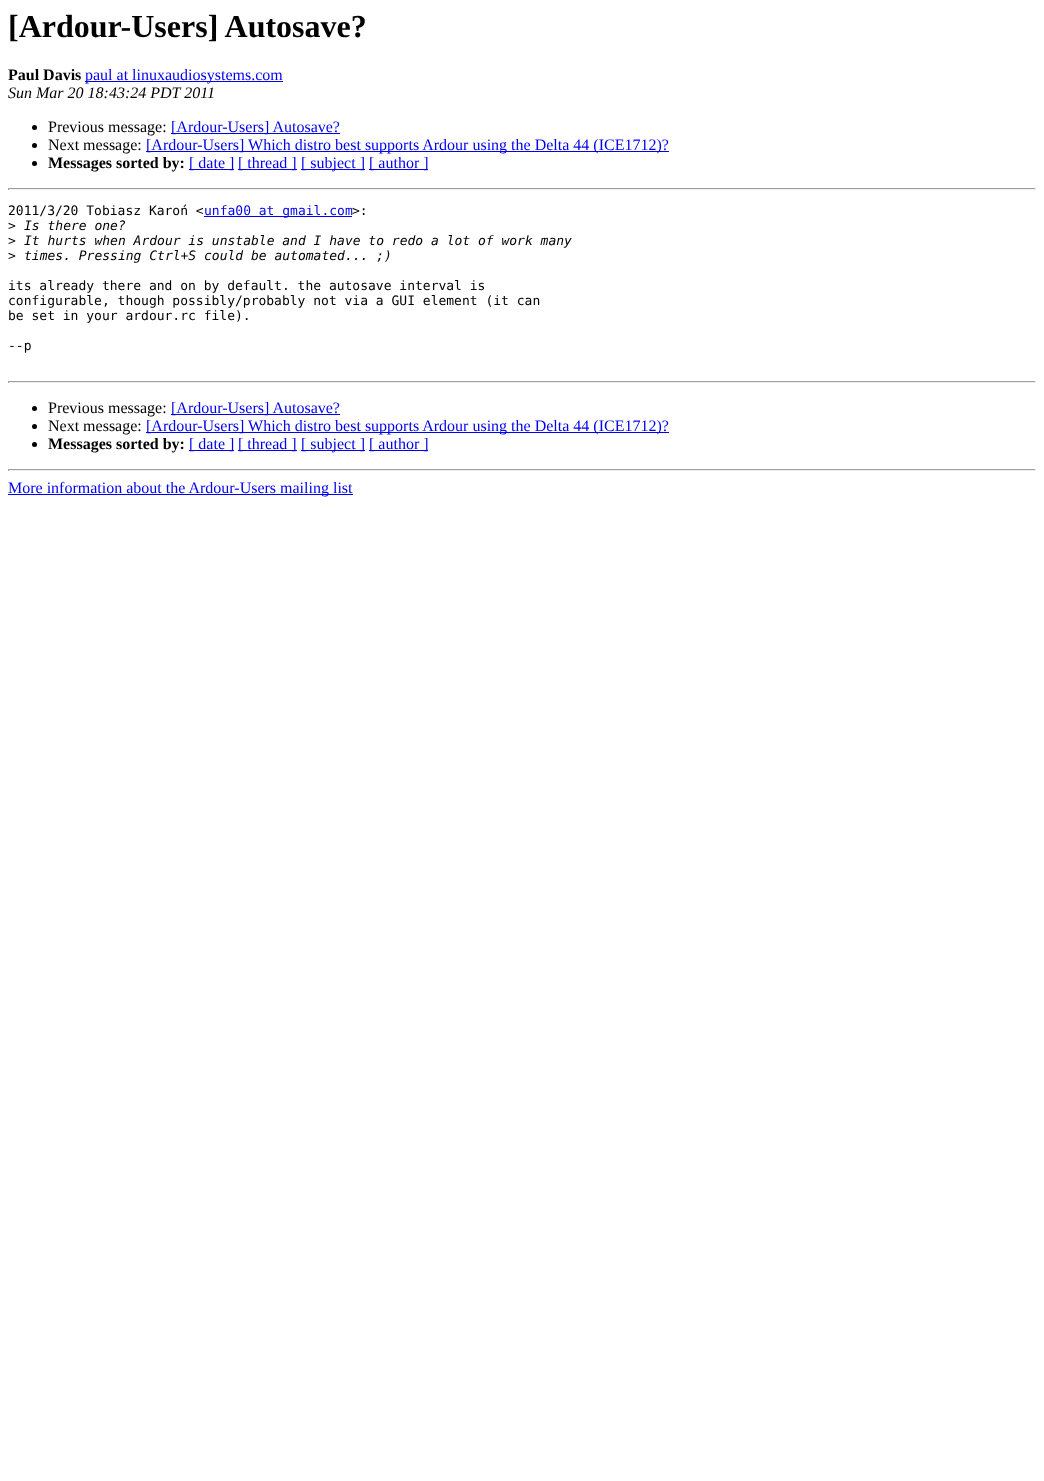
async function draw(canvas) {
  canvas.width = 1044
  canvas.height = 1481
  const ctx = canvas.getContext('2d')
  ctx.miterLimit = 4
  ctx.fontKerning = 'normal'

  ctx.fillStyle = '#fff'
  ctx.fillRect(0, 0, 1044, 1481)
  ctx.font = 'bold 32px Liberation Serif'
  ctx.fillStyle = '#000'
  ctx.fillText('[Ardour-Users] Autosave?', 8, 37)
  ctx.font = 'bold 16px Liberation Serif'
  ctx.fillText('Paul Davis', 8, 80)
  ctx.fillStyle = '#00e'
  ctx.fillRect(85, 81, 198, 1)
  ctx.font = '16px Liberation Serif'
  ctx.fillText('paul at linuxaudiosystems.com', 85, 80)
  ctx.font = 'italic 16px Liberation Serif'
  ctx.fillStyle = '#000'
  ctx.fillText('Sun Mar 20 18:43:24 PDT 2011', 8, 98)
  ctx.beginPath()
  ctx.arc(34.5, 127.5, 2.5, 0, 2 * Math.PI)
  ctx.fill()
  ctx.font = '16px Liberation Serif'
  ctx.fillText('Previous message:', 48, 132)
  ctx.fillStyle = '#00e'
  ctx.fillRect(171, 133, 169, 1)
  ctx.fillText('[Ardour-Users] Autosave?', 171, 132)
  ctx.fillStyle = '#000'
  ctx.beginPath()
  ctx.arc(34.5, 145.5, 2.5, 0, 2 * Math.PI)
  ctx.fill()
  ctx.fillText('Next message:', 48, 150)
  ctx.fillStyle = '#00e'
  ctx.fillRect(146, 151, 523, 1)
  ctx.fillText('[Ardour-Users] Which distro best supports Ardour using the Delta 44 (ICE1712)?', 146, 150)
  ctx.fillStyle = '#000'
  ctx.beginPath()
  ctx.arc(34.5, 163.5, 2.5, 0, 2 * Math.PI)
  ctx.fill()
  ctx.font = 'bold 16px Liberation Serif'
  ctx.fillText('Messages sorted by:', 48, 168)
  ctx.fillStyle = '#00e'
  ctx.fillRect(189, 169, 45, 1)
  ctx.font = '16px Liberation Serif'
  ctx.fillText('[ date ]', 189, 168)
  ctx.fillRect(238, 169, 59, 1)
  ctx.fillText('[ thread ]', 238, 168)
  ctx.fillRect(301, 169, 64, 1)
  ctx.fillText('[ subject ]', 301, 168)
  ctx.fillRect(369, 169, 59, 1)
  ctx.fillText('[ author ]', 369, 168)
  ctx.fillStyle = '#9f9f9f'
  ctx.fillRect(8, 188, 1028, 1)
  ctx.fillStyle = '#eee'
  ctx.fillRect(1035, 188, 1, 2)
  ctx.fillRect(8, 189, 1028, 1)
  ctx.fillStyle = '#9f9f9f'
  ctx.fillRect(8, 188, 1, 2)
  ctx.font = '13px DejaVu Sans Mono'
  ctx.fillStyle = '#000'
  ctx.fillText('2011/3/20 Tobiasz Karoń <', 8, 215)
  ctx.fillStyle = '#00e'
  ctx.fillRect(204, 216, 148, 1)
  ctx.fillText('unfa00 at gmail.com', 204, 215)
  ctx.fillStyle = '#000'
  ctx.fillText('>:', 352, 215)
  ctx.fillText('>', 8, 230)
  ctx.font = 'italic 13px DejaVu Sans Mono'
  ctx.fillText('Is there one?', 24, 230)
  ctx.font = '13px DejaVu Sans Mono'
  ctx.fillText('>', 8, 245)
  ctx.font = 'italic 13px DejaVu Sans Mono'
  ctx.fillText('It hurts when Ardour is unstable and I have to redo a lot of work many', 24, 245)
  ctx.font = '13px DejaVu Sans Mono'
  ctx.fillText('>', 8, 260)
  ctx.font = 'italic 13px DejaVu Sans Mono'
  ctx.fillText('times. Pressing Ctrl+S could be automated... ;)', 24, 260)
  ctx.font = '13px DejaVu Sans Mono'
  ctx.fillText('its already there and on by default. the autosave interval is', 8, 290)
  ctx.fillText('configurable, though possibly/probably not via a GUI element (it can', 8, 305)
  ctx.fillText('be set in your ardour.rc file).', 8, 320)
  ctx.fillText('--p', 8, 350)
  ctx.fillStyle = '#9f9f9f'
  ctx.fillRect(8, 381, 1028, 1)
  ctx.fillStyle = '#eee'
  ctx.fillRect(1035, 381, 1, 2)
  ctx.fillRect(8, 382, 1028, 1)
  ctx.fillStyle = '#9f9f9f'
  ctx.fillRect(8, 381, 1, 2)
  ctx.fillStyle = '#000'
  ctx.beginPath()
  ctx.arc(34.5, 408.5, 2.5, 0, 2 * Math.PI)
  ctx.fill()
  ctx.font = '16px Liberation Serif'
  ctx.fillText('Previous message:', 48, 413)
  ctx.fillStyle = '#00e'
  ctx.fillRect(171, 414, 169, 1)
  ctx.fillText('[Ardour-Users] Autosave?', 171, 413)
  ctx.fillStyle = '#000'
  ctx.beginPath()
  ctx.arc(34.5, 426.5, 2.5, 0, 2 * Math.PI)
  ctx.fill()
  ctx.fillText('Next message:', 48, 431)
  ctx.fillStyle = '#00e'
  ctx.fillRect(146, 432, 523, 1)
  ctx.fillText('[Ardour-Users] Which distro best supports Ardour using the Delta 44 (ICE1712)?', 146, 431)
  ctx.fillStyle = '#000'
  ctx.beginPath()
  ctx.arc(34.5, 444.5, 2.5, 0, 2 * Math.PI)
  ctx.fill()
  ctx.font = 'bold 16px Liberation Serif'
  ctx.fillText('Messages sorted by:', 48, 449)
  ctx.fillStyle = '#00e'
  ctx.fillRect(189, 450, 45, 1)
  ctx.font = '16px Liberation Serif'
  ctx.fillText('[ date ]', 189, 449)
  ctx.fillRect(238, 450, 59, 1)
  ctx.fillText('[ thread ]', 238, 449)
  ctx.fillRect(301, 450, 64, 1)
  ctx.fillText('[ subject ]', 301, 449)
  ctx.fillRect(369, 450, 59, 1)
  ctx.fillText('[ author ]', 369, 449)
  ctx.fillStyle = '#9f9f9f'
  ctx.fillRect(8, 469, 1028, 1)
  ctx.fillStyle = '#eee'
  ctx.fillRect(1035, 469, 1, 2)
  ctx.fillRect(8, 470, 1028, 1)
  ctx.fillStyle = '#9f9f9f'
  ctx.fillRect(8, 469, 1, 2)
  ctx.fillStyle = '#00e'
  ctx.fillRect(8, 494, 345, 1)
  ctx.fillText('More information about the Ardour-Users mailing list', 8, 493)
}

draw(document.querySelector('canvas'))
